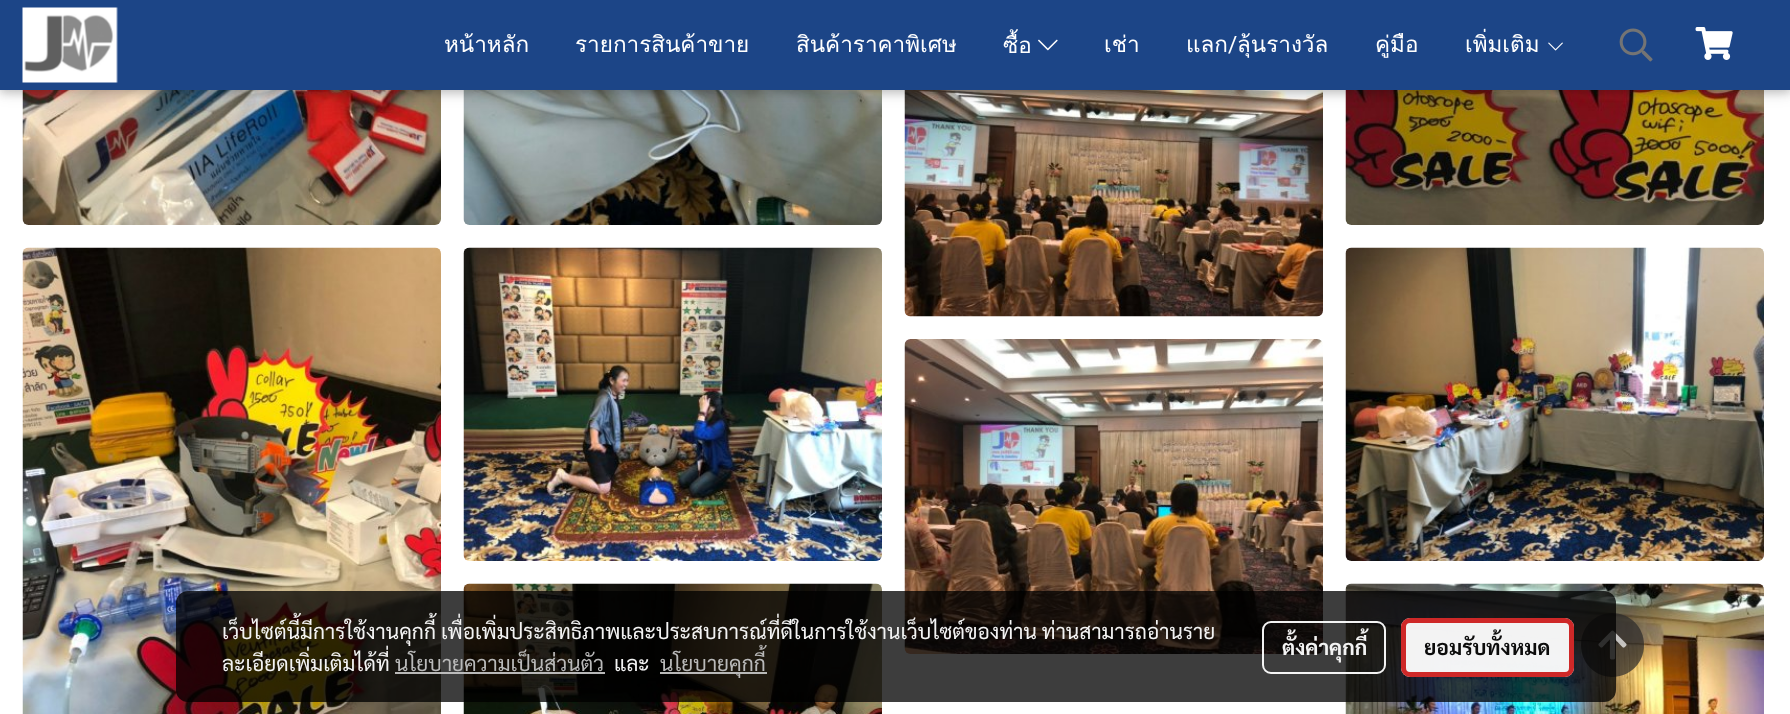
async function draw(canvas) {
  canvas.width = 1790
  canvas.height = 714
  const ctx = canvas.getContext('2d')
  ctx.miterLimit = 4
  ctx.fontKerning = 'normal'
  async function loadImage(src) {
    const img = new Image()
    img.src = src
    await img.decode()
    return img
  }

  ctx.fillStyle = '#fff'
  ctx.fillRect(0, 0, 1790, 714)
  ctx.drawImage(await loadImage('image5.png'), 22, 90, 419, 135)
  ctx.drawImage(await loadImage('image6.png'), 463, 90, 419, 135)
  ctx.drawImage(await loadImage('image7.png'), 904, 90, 419, 227)
  ctx.drawImage(await loadImage('image8.png'), 1345, 90, 419, 135)
  ctx.fillStyle = '#0000001f'
  ctx.filter = 'blur(7.5px)'
  ctx.beginPath()
  ctx.rect(0, 3, 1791, 90)
  ctx.fill()
  ctx.filter = 'none'
  ctx.fillStyle = '#00000029'
  ctx.filter = 'blur(4px)'
  ctx.beginPath()
  ctx.rect(0, 3, 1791, 90)
  ctx.fill()
  ctx.filter = 'none'
  ctx.fillStyle = '#1c4587'
  ctx.fillRect(0, 0, 1790, 90)
  ctx.drawImage(await loadImage('image0.png'), 22, 7, 96, 76)
  ctx.font = '22.5px Loma'
  ctx.fillStyle = '#fff'
  ctx.fillText('หน้าหลัก', 444, 52)
  ctx.fillText('รายการสินค้าขาย', 575, 52)
  ctx.fillText('สินค้าราคาพิเศษ', 796, 52)
  ctx.fillText('ซื้อ', 1003, 53)
  ctx.drawImage(await loadImage('image1.png'), 1038, 39, 20, 12)
  ctx.fillText('เช่า', 1104, 52)
  ctx.font = '22.5px Roboto'
  ctx.fillText('/', 1228, 52)
  ctx.font = '22.5px Loma'
  ctx.fillText('ลุ้นรางวัล', 1237, 52)
  ctx.fillText('แลก', 1186, 52)
  ctx.fillText('คู่มือ', 1375, 52)
  ctx.fillText('เพิ่มเติม', 1465, 52)
  ctx.drawImage(await loadImage('image2.png'), 1548, 42, 15, 9)
  ctx.drawImage(await loadImage('image3.png'), 1619, 28, 34, 34)
  ctx.drawImage(await loadImage('image4.png'), 1695, 27, 38, 33)
  ctx.drawImage(await loadImage('image9.png'), 22, 247, 419, 467)
  ctx.drawImage(await loadImage('image10.png'), 463, 247, 419, 314)
  ctx.drawImage(await loadImage('image11.png'), 904, 339, 419, 315)
  ctx.drawImage(await loadImage('image12.png'), 1345, 247, 419, 314)
  ctx.drawImage(await loadImage('image13.png'), 463, 583, 419, 131)
  ctx.drawImage(await loadImage('image14.png'), 1345, 583, 419, 131)
  ctx.fillStyle = '#2b2a2ab3'
  ctx.beginPath()
  ctx.moveTo(1612, 613)
  ctx.bezierCurveTo(1595, 613, 1581, 627, 1581, 645)
  ctx.bezierCurveTo(1581, 663, 1595, 677, 1612, 677)
  ctx.bezierCurveTo(1630, 677, 1644, 663, 1644, 645)
  ctx.bezierCurveTo(1644, 627, 1630, 613, 1612, 613)
  ctx.closePath()
  ctx.fill()
  ctx.drawImage(await loadImage('image15.png'), 1598, 630, 29, 30)
  ctx.fillStyle = '#000000c2'
  ctx.beginPath()
  ctx.roundRect(176, 591, 1440, 111, 12)
  ctx.fill()
  ctx.font = '21px Sarabun'
  ctx.fillStyle = '#f3f3f3'
  ctx.fillText('เว็บไซต์นี้มีการใช้งานคุกกี้ เพื่อเพิ่มประสิทธิภาพและประสบการณ์ที่ดีในการใช้งานเว็บไซต์ของท่าน ท่านสามารถอ่านราย', 222, 639)
  ctx.fillText('ละเอียดเพิ่มเติมได้ที่', 222, 671)
  ctx.fillStyle = '#b9b9b9'
  ctx.fillText('นโยบายความเป็นส่วนตัว', 395, 671)
  ctx.fillStyle = '#c2c2c2f2'
  ctx.fillRect(395, 672, 210, 2)
  ctx.fillStyle = '#f3f3f3'
  ctx.fillText('และ', 614, 671)
  ctx.fillStyle = '#c2c2c2f2'
  ctx.fillRect(660, 672, 107, 2)
  ctx.fillStyle = '#b9b9b9'
  ctx.fillText('นโยบายคุกกี้', 660, 671)
  ctx.beginPath()
  ctx.roundRect(1263, 622, 122, 51, 8)
  ctx.strokeStyle = '#fffffff2'
  ctx.lineWidth = 2
  ctx.stroke()
  ctx.font = 'bold 21px Sarabun'
  ctx.fillStyle = '#f3f3f3'
  ctx.fillText('ตั้งค่าคุกกี้', 1282, 655)
  ctx.fillStyle = '#fffffff2'
  ctx.beginPath()
  ctx.roundRect(1401, 618, 173, 59, 9)
  ctx.fill()
  ctx.beginPath()
  ctx.roundRect(1403.5, 620.5, 168, 54, 6.5)
  ctx.strokeStyle = '#cb1c1cf2'
  ctx.lineWidth = 5
  ctx.stroke()
  ctx.fillStyle = '#0c0c0c'
  ctx.fillText('ยอมรับทั้งหมด', 1424, 655)
}

draw(document.querySelector('canvas'))
